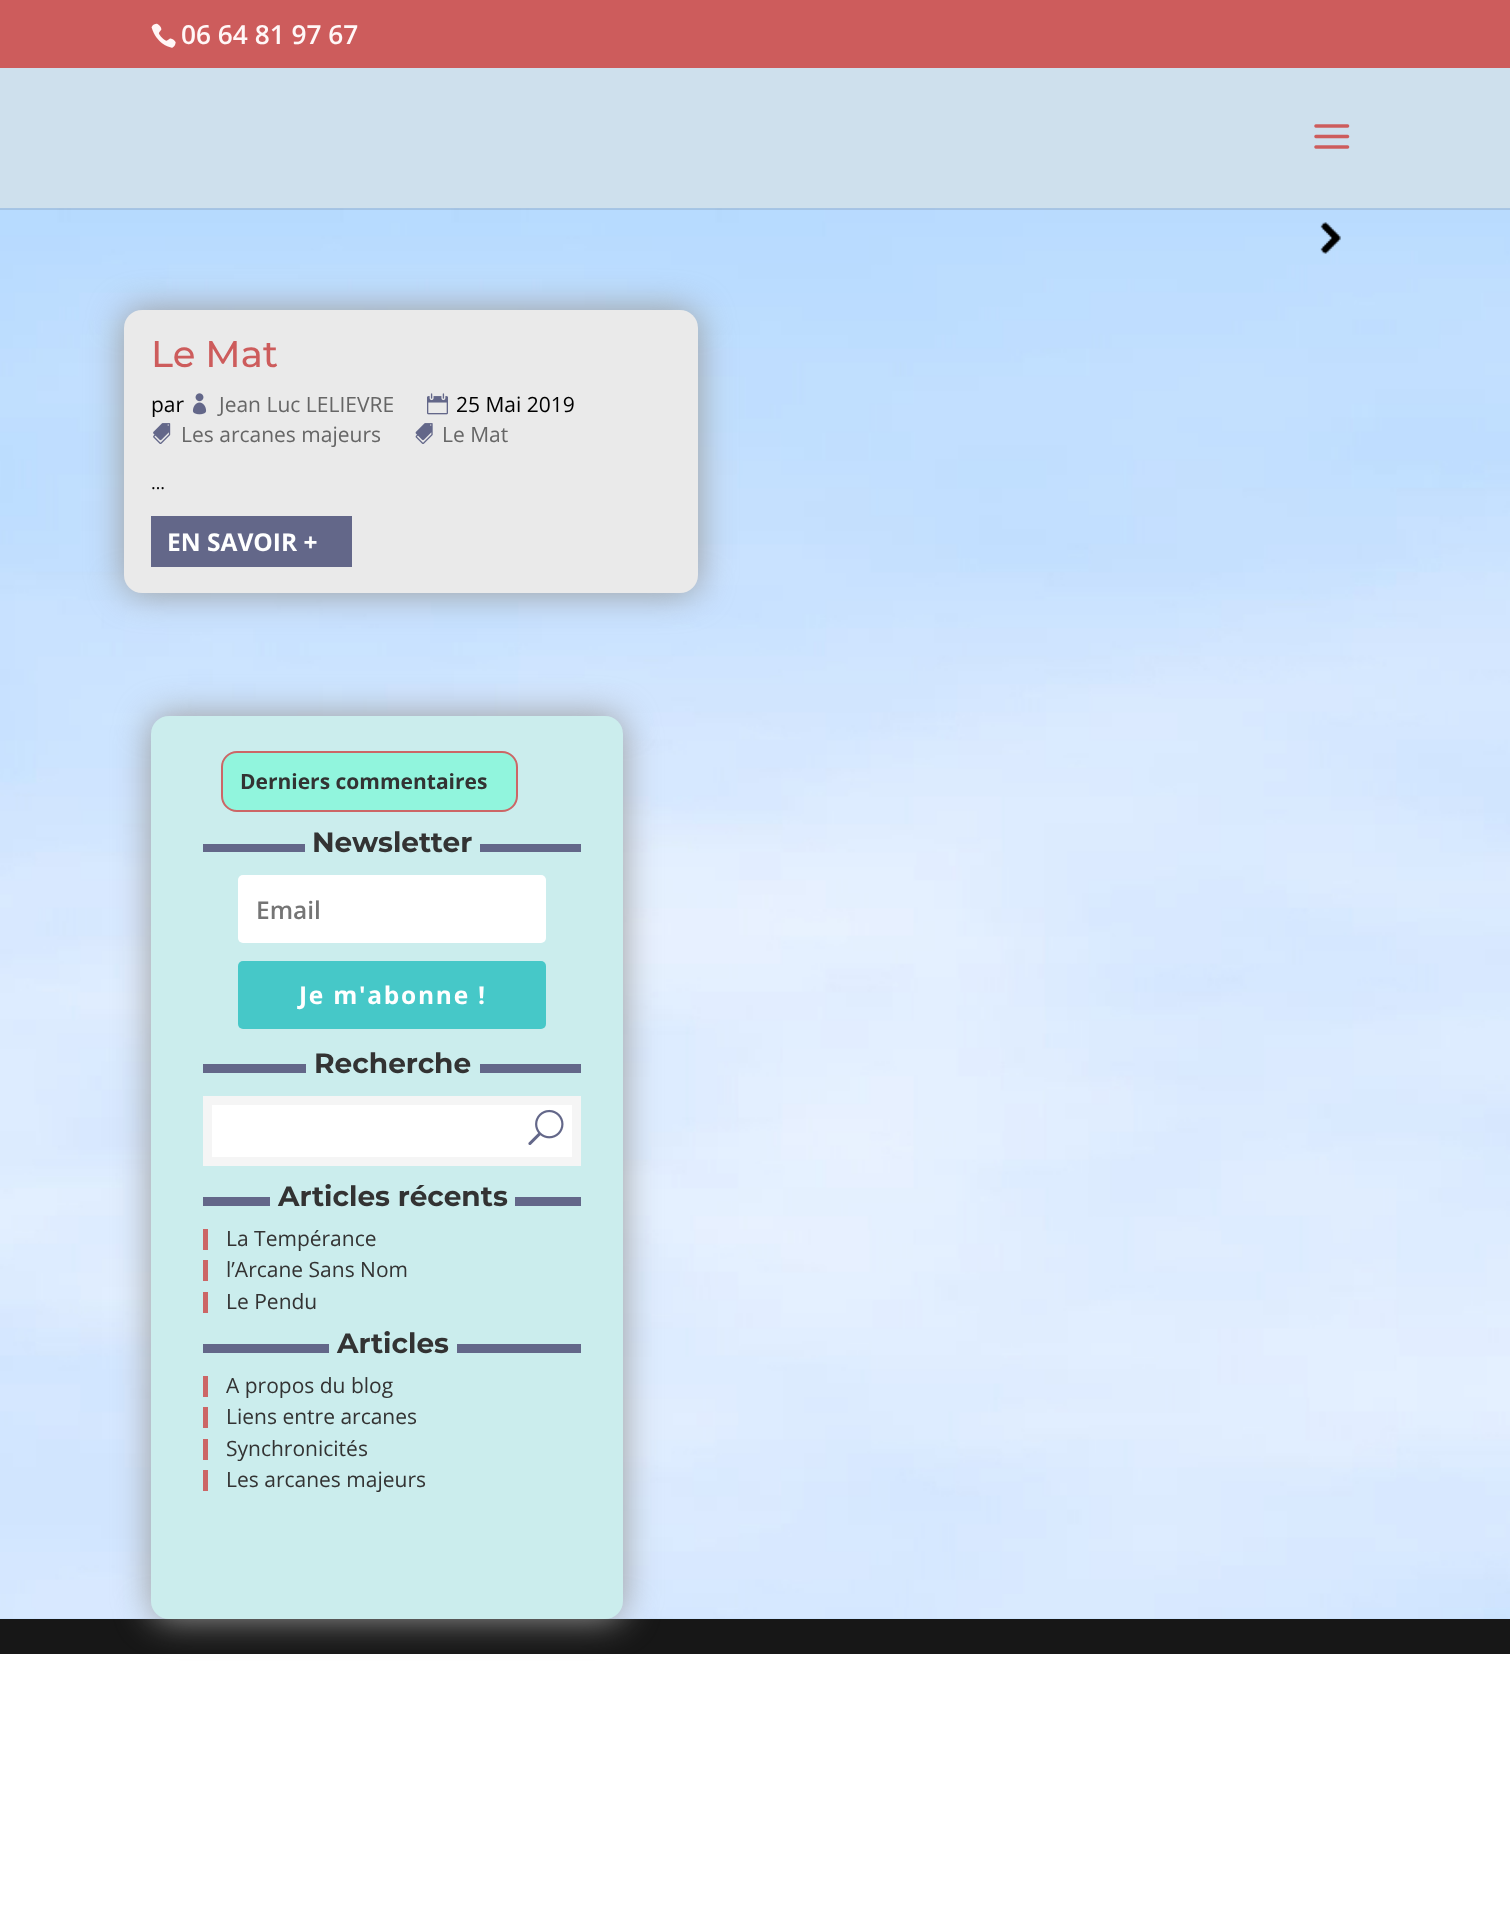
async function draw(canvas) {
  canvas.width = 1510
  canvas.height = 1914
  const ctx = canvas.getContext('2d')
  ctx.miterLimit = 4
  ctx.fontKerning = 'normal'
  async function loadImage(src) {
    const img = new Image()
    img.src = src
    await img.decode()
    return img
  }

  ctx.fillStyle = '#fff'
  ctx.fillRect(0, 0, 1510, 1914)
  ctx.drawImage(await loadImage('image0.png'), 0, 208, 1510, 1411)
  ctx.fillStyle = '#cd5c5c'
  ctx.fillRect(0, 0, 1510, 68)
  ctx.drawImage(await loadImage('image1.png'), 151, 23, 25, 25)
  ctx.font = '600 26.25px Open Sans'
  ctx.fillStyle = '#fff7f7'
  ctx.fillText('06 64 81 97 67', 181, 44)
  ctx.drawImage(await loadImage('image3.png'), 0, 208, 1510, 1411)
  ctx.fillStyle = '#0000001a'
  ctx.fillRect(0, 208, 1510, 2)
  ctx.fillStyle = '#cee0ed'
  ctx.fillRect(0, 68, 1510, 140)
  ctx.drawImage(await loadImage('image2.png'), 1314, 124, 36, 25)
  ctx.fillStyle = '#9b9b9b'
  ctx.filter = 'blur(17.5px)'
  ctx.beginPath()
  ctx.roundRect(124, 310, 574, 283, 18)
  ctx.fill()
  ctx.filter = 'none'
  ctx.fillStyle = '#eaeaea'
  ctx.beginPath()
  ctx.roundRect(124, 310, 574, 283, 18)
  ctx.fill()
  ctx.font = '500 37px Montserrat'
  ctx.fillStyle = '#cd5c5c'
  ctx.fillText('Le Mat', 151, 367)
  ctx.font = '21px Open Sans'
  ctx.fillStyle = '#000'
  ctx.fillText('par', 151, 412)
  ctx.drawImage(await loadImage('image4.png'), 192, 393, 15, 22)
  ctx.fillStyle = '#666'
  ctx.fillText('Jean Luc LELIEVRE', 219, 412)
  ctx.drawImage(await loadImage('image5.png'), 427, 393, 21, 22)
  ctx.fillStyle = '#000'
  ctx.fillText('25 Mai 2019', 456, 412)
  ctx.drawImage(await loadImage('image6.png'), 153, 423, 18, 21)
  ctx.fillStyle = '#666'
  ctx.fillText('Les arcanes majeurs', 181, 442)
  ctx.drawImage(await loadImage('image7.png'), 415, 423, 18, 21)
  ctx.fillText('Le Mat', 442, 442)
  ctx.font = '18px Open Sans'
  ctx.fillStyle = '#000'
  ctx.fillText('…', 151, 489)
  ctx.fillStyle = '#636789'
  ctx.fillRect(151, 516, 201, 51)
  ctx.font = 'bold 24.5px Open Sans'
  ctx.fillStyle = '#fff'
  ctx.fillText('EN SAVOIR +', 167, 551)
  ctx.fillStyle = '#171717'
  ctx.fillRect(0, 1619, 1510, 35)
  ctx.fillStyle = '#9b9b9b'
  ctx.filter = 'blur(17.5px)'
  ctx.beginPath()
  ctx.roundRect(151, 716, 472, 903, 18)
  ctx.fill()
  ctx.filter = 'none'
  ctx.fillStyle = '#cbeded'
  ctx.beginPath()
  ctx.roundRect(151, 716, 472, 903, 18)
  ctx.fill()
  ctx.fillStyle = '#91f5dd'
  ctx.beginPath()
  ctx.roundRect(222, 752, 295, 59, 15)
  ctx.fill()
  ctx.strokeStyle = '#c66'
  ctx.lineWidth = 2
  ctx.stroke()
  ctx.font = 'bold 21px Open Sans'
  ctx.fillStyle = '#333'
  ctx.fillText('Derniers commentaires', 240, 789)
  ctx.fillStyle = '#636789'
  ctx.fillRect(203, 844, 102, 8)
  ctx.font = 'bold 28px Montserrat'
  ctx.fillStyle = '#333'
  ctx.fillText('Newsletter', 312, 852)
  ctx.fillStyle = '#636789'
  ctx.fillRect(480, 844, 101, 8)
  ctx.fillStyle = '#fff'
  ctx.beginPath()
  ctx.roundRect(238, 875, 308, 68, 5)
  ctx.fill()
  ctx.font = '600 24.5px Open Sans'
  ctx.fillStyle = '#757575'
  ctx.fillText('Email', 256, 919)
  ctx.fillStyle = '#46c8c8'
  ctx.beginPath()
  ctx.roundRect(238, 961, 308, 68, 5)
  ctx.fill()
  ctx.letterSpacing = '1.75px'
  ctx.font = 'bold 24.5px Open Sans'
  ctx.fillStyle = '#fff'
  ctx.fillText('Je m\'abonne !', 299, 1004)
  ctx.fillStyle = '#636789'
  ctx.fillRect(203, 1064, 103, 9)
  ctx.letterSpacing = '0px'
  ctx.font = 'bold 28px Montserrat'
  ctx.fillStyle = '#333'
  ctx.fillText('Recherche', 314, 1073)
  ctx.fillStyle = '#636789'
  ctx.fillRect(480, 1064, 101, 9)
  ctx.fillStyle = '#fff'
  ctx.beginPath()
  ctx.rect(207.5, 1100.5, 369, 61)
  ctx.fill()
  ctx.strokeStyle = '#f5f5f5'
  ctx.lineWidth = 9
  ctx.stroke()
  ctx.drawImage(await loadImage('image8.png'), 528, 1109, 36, 36)
  ctx.fillStyle = '#636789'
  ctx.fillRect(203, 1197, 67, 9)
  ctx.fillStyle = '#333'
  ctx.fillText('Articles récents', 278, 1206)
  ctx.fillStyle = '#636789'
  ctx.fillRect(515, 1197, 66, 9)
  ctx.fillStyle = '#c66'
  ctx.fillRect(203, 1229, 5, 21)
  ctx.font = '21px Open Sans'
  ctx.fillStyle = '#333'
  ctx.fillText('La Tempérance', 226, 1246)
  ctx.fillStyle = '#c66'
  ctx.fillRect(203, 1260, 5, 21)
  ctx.fillStyle = '#333'
  ctx.fillText('l’Arcane Sans Nom', 226, 1277)
  ctx.fillStyle = '#c66'
  ctx.fillRect(203, 1292, 5, 21)
  ctx.fillStyle = '#333'
  ctx.fillText('Le Pendu', 226, 1309)
  ctx.fillStyle = '#636789'
  ctx.fillRect(203, 1344, 126, 9)
  ctx.font = 'bold 28px Montserrat'
  ctx.fillStyle = '#333'
  ctx.fillText('Articles', 337, 1353)
  ctx.fillStyle = '#636789'
  ctx.fillRect(457, 1344, 124, 9)
  ctx.fillStyle = '#c66'
  ctx.fillRect(203, 1376, 5, 21)
  ctx.font = '21px Open Sans'
  ctx.fillStyle = '#333'
  ctx.fillText('A propos du blog', 226, 1393)
  ctx.drawImage(await loadImage('image9.png'), 1320, 222, 21, 32)
  ctx.fillStyle = '#c66'
  ctx.fillRect(203, 1407, 5, 21)
  ctx.fillStyle = '#333'
  ctx.fillText('Liens entre arcanes', 226, 1424)
  ctx.drawImage(await loadImage('image10.png'), 1320, 222, 21, 32)
  ctx.fillStyle = '#c66'
  ctx.fillRect(203, 1439, 5, 21)
  ctx.fillStyle = '#333'
  ctx.fillText('Synchronicités', 226, 1456)
  ctx.drawImage(await loadImage('image11.png'), 1320, 222, 21, 32)
  ctx.fillStyle = '#c66'
  ctx.fillRect(203, 1470, 5, 21)
  ctx.fillStyle = '#333'
  ctx.fillText('Les arcanes majeurs', 226, 1487)
}

draw(document.querySelector('canvas'))
